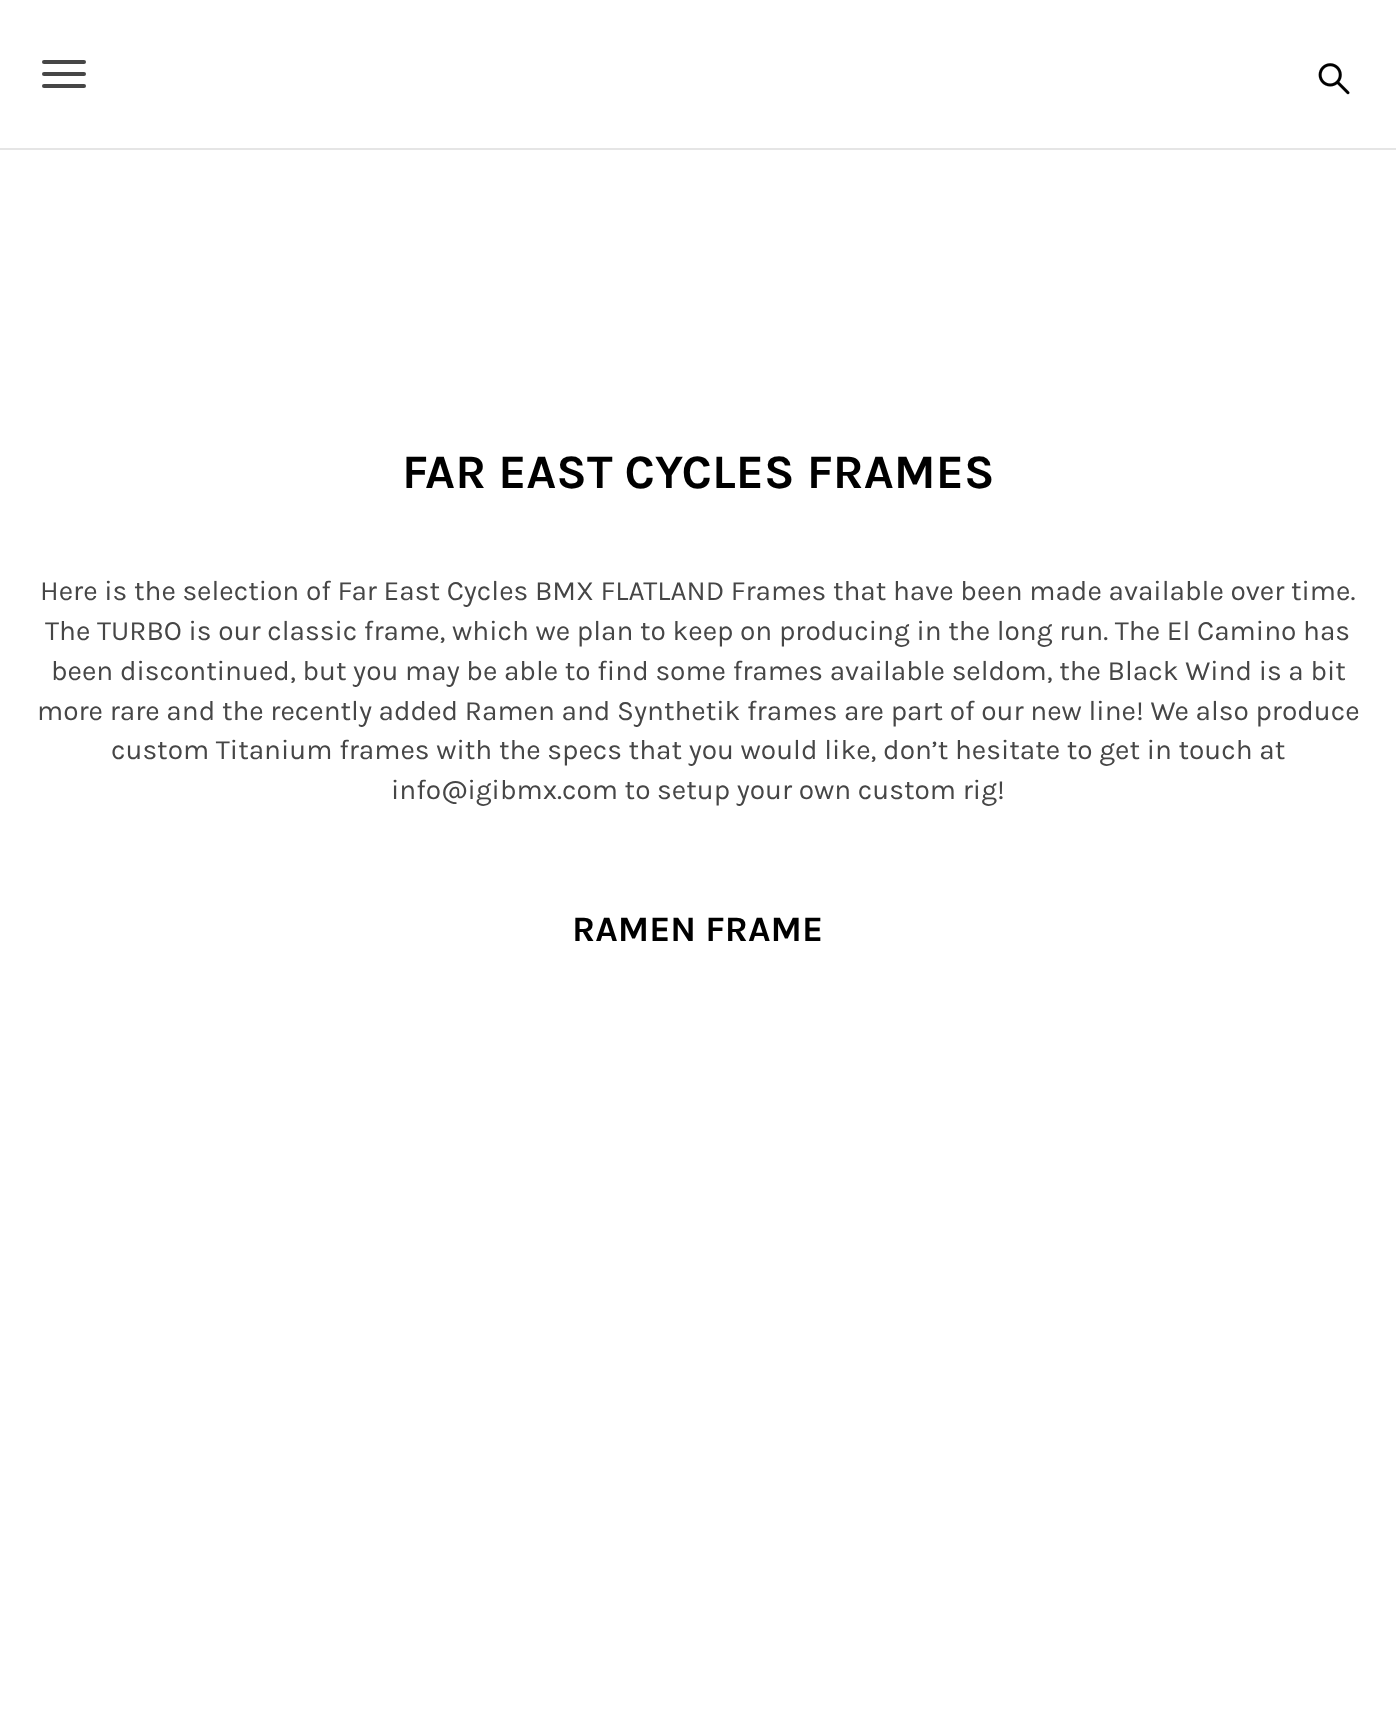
async function draw(canvas) {
  canvas.width = 1396
  canvas.height = 1715
  const ctx = canvas.getContext('2d')
  ctx.miterLimit = 4
  ctx.fontKerning = 'normal'
  async function loadImage(src) {
    const img = new Image()
    img.src = src
    await img.decode()
    return img
  }

  ctx.fillStyle = '#fff'
  ctx.fillRect(0, 0, 1396, 1715)
  ctx.fillStyle = '#e5e5e5'
  ctx.fillRect(0, 148, 1396, 2)
  ctx.fillStyle = '#464646'
  ctx.beginPath()
  ctx.roundRect(42, 60, 44, 4, 2)
  ctx.fill()
  ctx.beginPath()
  ctx.roundRect(42, 72, 44, 4, 2)
  ctx.fill()
  ctx.beginPath()
  ctx.roundRect(42, 84, 44, 4, 2)
  ctx.fill()
  ctx.drawImage(await loadImage('image0.png'), 1318, 63, 32, 32)
  ctx.font = 'bold 48px Karla'
  ctx.fillStyle = '#000'
  ctx.fillText('FAR EAST CYCLES FRAMES', 402, 488)
  ctx.font = '28px Karla'
  ctx.fillStyle = '#464646'
  ctx.fillText('Here is the selection of Far East Cycles BMX FLATLAND Frames that have been made available over time.', 40, 600)
  ctx.fillText('The TURBO is our classic frame, which we plan to keep on producing in the long run. The El Camino has', 45, 640)
  ctx.fillText('been discontinued, but you may be able to find some frames available seldom, the Black Wind is a bit', 51, 680)
  ctx.fillText('more rare and the recently added Ramen and Synthetik frames are part of our new line! We also produce', 37, 720)
  ctx.fillText('custom Titanium frames with the specs that you would like, don’t hesitate to get in touch at', 111, 759)
  ctx.fillText('info@igibmx.com to setup your own custom rig!', 391, 799)
  ctx.font = 'bold 36px Karla'
  ctx.fillStyle = '#000'
  ctx.fillText('RAMEN FRAME', 572, 941)
}

draw(document.querySelector('canvas'))
